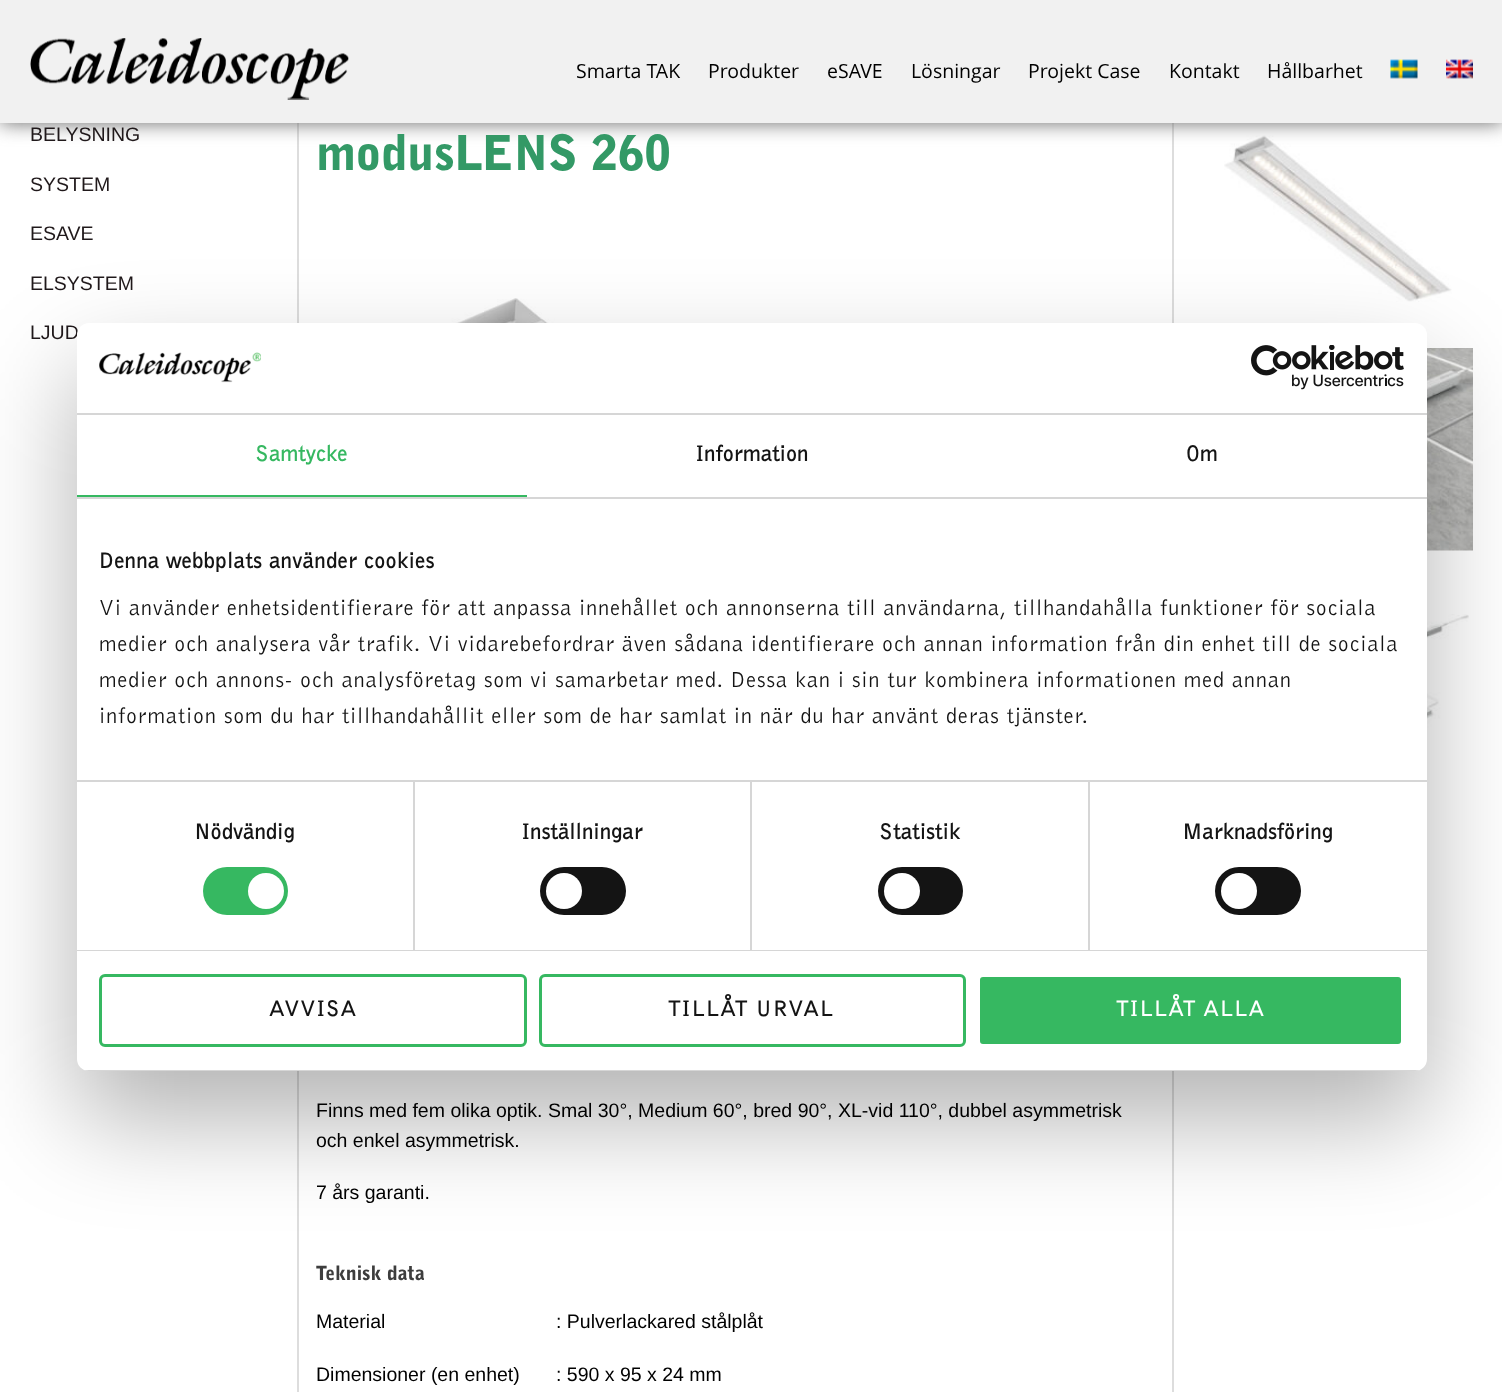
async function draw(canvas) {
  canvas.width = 1502
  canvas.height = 1392
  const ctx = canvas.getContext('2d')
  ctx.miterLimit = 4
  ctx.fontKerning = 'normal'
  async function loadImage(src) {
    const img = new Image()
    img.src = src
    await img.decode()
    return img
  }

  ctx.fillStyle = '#fff'
  ctx.fillRect(0, 0, 1502, 1392)
  ctx.fillStyle = '#ddd'
  ctx.fillRect(297, 117, 2, 1275)
  ctx.fillRect(1172, 117, 2, 1275)
  ctx.drawImage(await loadImage('image4.png'), 1224, 135, 228, 167)
  ctx.fillStyle = '#686868'
  ctx.filter = 'blur(10px)'
  ctx.beginPath()
  ctx.rect(0, 0, 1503, 123)
  ctx.fill()
  ctx.filter = 'none'
  ctx.fillStyle = '#f1f1f1'
  ctx.fillRect(0, 0, 1502, 123)
  ctx.drawImage(await loadImage('image0.png'), 30, 38, 319, 62)
  ctx.font = '19.5px Open Sans'
  ctx.fillStyle = '#000'
  ctx.fillText('Smarta TAK', 576, 78)
  ctx.fillText('Produkter', 708, 78)
  ctx.fillText('eSAVE', 827, 78)
  ctx.fillText('Lösningar', 911, 78)
  ctx.fillText('Projekt Case', 1028, 78)
  ctx.fillText('Kontakt', 1169, 78)
  ctx.fillText('Hållbarhet', 1267, 78)
  ctx.drawImage(await loadImage('image1.png'), 1390, 59, 28, 20)
  ctx.drawImage(await loadImage('image2.png'), 1446, 59, 27, 20)
  ctx.font = '19.5px Liberation Sans'
  ctx.fillStyle = '#20191b'
  ctx.fillText('BELYSNING', 30, 141)
  ctx.fillText('SYSTEM', 30, 191)
  ctx.fillText('ESAVE', 30, 240)
  ctx.fillText('ELSYSTEM', 30, 290)
  ctx.fillText('LJUD', 30, 339)
  ctx.font = '900 48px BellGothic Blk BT'
  ctx.fillStyle = '#396'
  ctx.fillText('modusLENS 260', 316, 170)
  ctx.drawImage(await loadImage('image3.png'), 410, 298, 635, 25)
  ctx.font = '19.5px Liberation Sans'
  ctx.fillStyle = '#000'
  ctx.fillText('Finns med fem olika optik. Smal 30°, Medium 60°, bred 90°, XL-vid 110°, dubbel asymmetrisk', 316, 1117)
  ctx.fillText('och enkel asymmetrisk.', 316, 1147)
  ctx.fillText('7 års garanti.', 316, 1199)
  ctx.font = '900 19.5px BellGothic Blk BT'
  ctx.fillStyle = '#3d3d3d'
  ctx.fillText('Teknisk data', 316, 1280)
  ctx.font = '19.5px Liberation Sans'
  ctx.fillStyle = '#000'
  ctx.fillText('Material', 316, 1328)
  ctx.fillText(': Pulverlackared stålplåt', 556, 1328)
  ctx.fillText('Dimensioner (en enhet)', 316, 1381)
  ctx.fillText(': 590 x 95 x 24 mm', 556, 1381)
  ctx.drawImage(await loadImage('image5.png'), 1427, 348, 46, 203)
  ctx.drawImage(await loadImage('image6.png'), 1427, 614, 42, 133)
  ctx.fillStyle = '#0000004d'
  ctx.filter = 'blur(51px)'
  ctx.beginPath()
  ctx.roundRect(77, 371, 1350, 748, 12)
  ctx.fill()
  ctx.filter = 'none'
  ctx.fillStyle = '#fff'
  ctx.beginPath()
  ctx.roundRect(77, 323, 1350, 748, 12)
  ctx.fill()
  ctx.fillStyle = '#d6d6d6'
  ctx.fillRect(77, 413, 1350, 2)
  ctx.drawImage(await loadImage('image7.png'), 99, 352, 162, 31)
  ctx.drawImage(await loadImage('image8.png'), 1251, 345, 153, 45)
  ctx.fillRect(77, 497, 1350, 2)
  ctx.fillStyle = '#36b861'
  ctx.fillRect(77, 495, 450, 2)
  ctx.letterSpacing = '0.1px'
  ctx.font = 'bold 22.5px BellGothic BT'
  ctx.fillText('Samtycke', 255, 461)
  ctx.fillStyle = '#141414'
  ctx.fillText('Information', 695, 461)
  ctx.fillText('Om', 1186, 461)
  ctx.fillStyle = '#d6d6d6'
  ctx.fillRect(77, 780, 1350, 2)
  ctx.letterSpacing = '0.4px'
  ctx.fillStyle = '#141414'
  ctx.fillText('Denna webbplats använder cookies', 99, 568)
  ctx.letterSpacing = '0.75px'
  ctx.font = '22.5px BellGothic BT'
  ctx.fillText('Vi använder enhetsidentifierare för att anpassa innehållet och annonserna till användarna, tillhandahålla funktioner för sociala', 99, 615)
  ctx.fillText('medier och analysera vår trafik. Vi vidarebefordrar även sådana identifierare och annan information från din enhet till de sociala', 99, 651)
  ctx.fillText('medier och annons- och analysföretag som vi samarbetar med. Dessa kan i sin tur kombinera informationen med annan', 99, 687)
  ctx.fillText('information som du har tillhandahållit eller som de har samlat in när du har använt deras tjänster.', 99, 723)
  ctx.fillStyle = '#d6d6d6'
  ctx.fillRect(77, 950, 1350, 1)
  ctx.fillRect(413, 782, 2, 168)
  ctx.letterSpacing = '0.1px'
  ctx.font = 'bold 22.5px BellGothic BT'
  ctx.fillStyle = '#141414'
  ctx.fillText('Nödvändig', 194, 839)
  ctx.fillStyle = '#36b861'
  ctx.beginPath()
  ctx.roundRect(203, 867, 85, 48, 24)
  ctx.fill()
  ctx.fillStyle = '#fff'
  ctx.beginPath()
  ctx.arc(266, 891, 18, 0, 2 * Math.PI)
  ctx.fill()
  ctx.fillStyle = '#d6d6d6'
  ctx.fillRect(750, 782, 2, 168)
  ctx.fillStyle = '#141414'
  ctx.fillText('Inställningar', 521, 839)
  ctx.beginPath()
  ctx.roundRect(540, 867, 86, 48, 24)
  ctx.fill()
  ctx.fillStyle = '#fff'
  ctx.beginPath()
  ctx.arc(564, 891, 18, 0, 2 * Math.PI)
  ctx.fill()
  ctx.fillStyle = '#d6d6d6'
  ctx.fillRect(1088, 782, 2, 168)
  ctx.fillStyle = '#141414'
  ctx.fillText('Statistik', 879, 839)
  ctx.beginPath()
  ctx.roundRect(878, 867, 85, 48, 24)
  ctx.fill()
  ctx.fillStyle = '#fff'
  ctx.beginPath()
  ctx.arc(902, 891, 18, 0, 2 * Math.PI)
  ctx.fill()
  ctx.fillStyle = '#141414'
  ctx.fillText('Marknadsföring', 1182, 839)
  ctx.beginPath()
  ctx.roundRect(1215, 867, 86, 48, 24)
  ctx.fill()
  ctx.fillStyle = '#fff'
  ctx.beginPath()
  ctx.arc(1239, 891, 18, 0, 2 * Math.PI)
  ctx.fill()
  ctx.save()
  ctx.beginPath()
  ctx.roundRect(77, 323, 1350, 748, 12)
  ctx.clip()
  ctx.fillStyle = '#d6d6d6'
  ctx.fillRect(77, 1070, 1350, 1)
  ctx.restore()
  ctx.beginPath()
  ctx.roundRect(100.5, 975.5, 425, 70, 4.5)
  ctx.strokeStyle = '#36b861'
  ctx.lineWidth = 3
  ctx.stroke()
  ctx.letterSpacing = '1px'
  ctx.fillStyle = '#141414'
  ctx.fillText('AVVISA', 269, 1016)
  ctx.beginPath()
  ctx.roundRect(540.5, 975.5, 424, 70, 4.5)
  ctx.stroke()
  ctx.fillText('TILLÅT URVAL', 668, 1016)
  ctx.fillStyle = '#36b861'
  ctx.beginPath()
  ctx.roundRect(978.5, 975.5, 424, 70, 4.5)
  ctx.fill()
  ctx.strokeStyle = '#fff'
  ctx.stroke()
  ctx.fillStyle = '#fff'
  ctx.fillText('TILLÅT ALLA', 1116, 1016)
}

draw(document.querySelector('canvas'))
